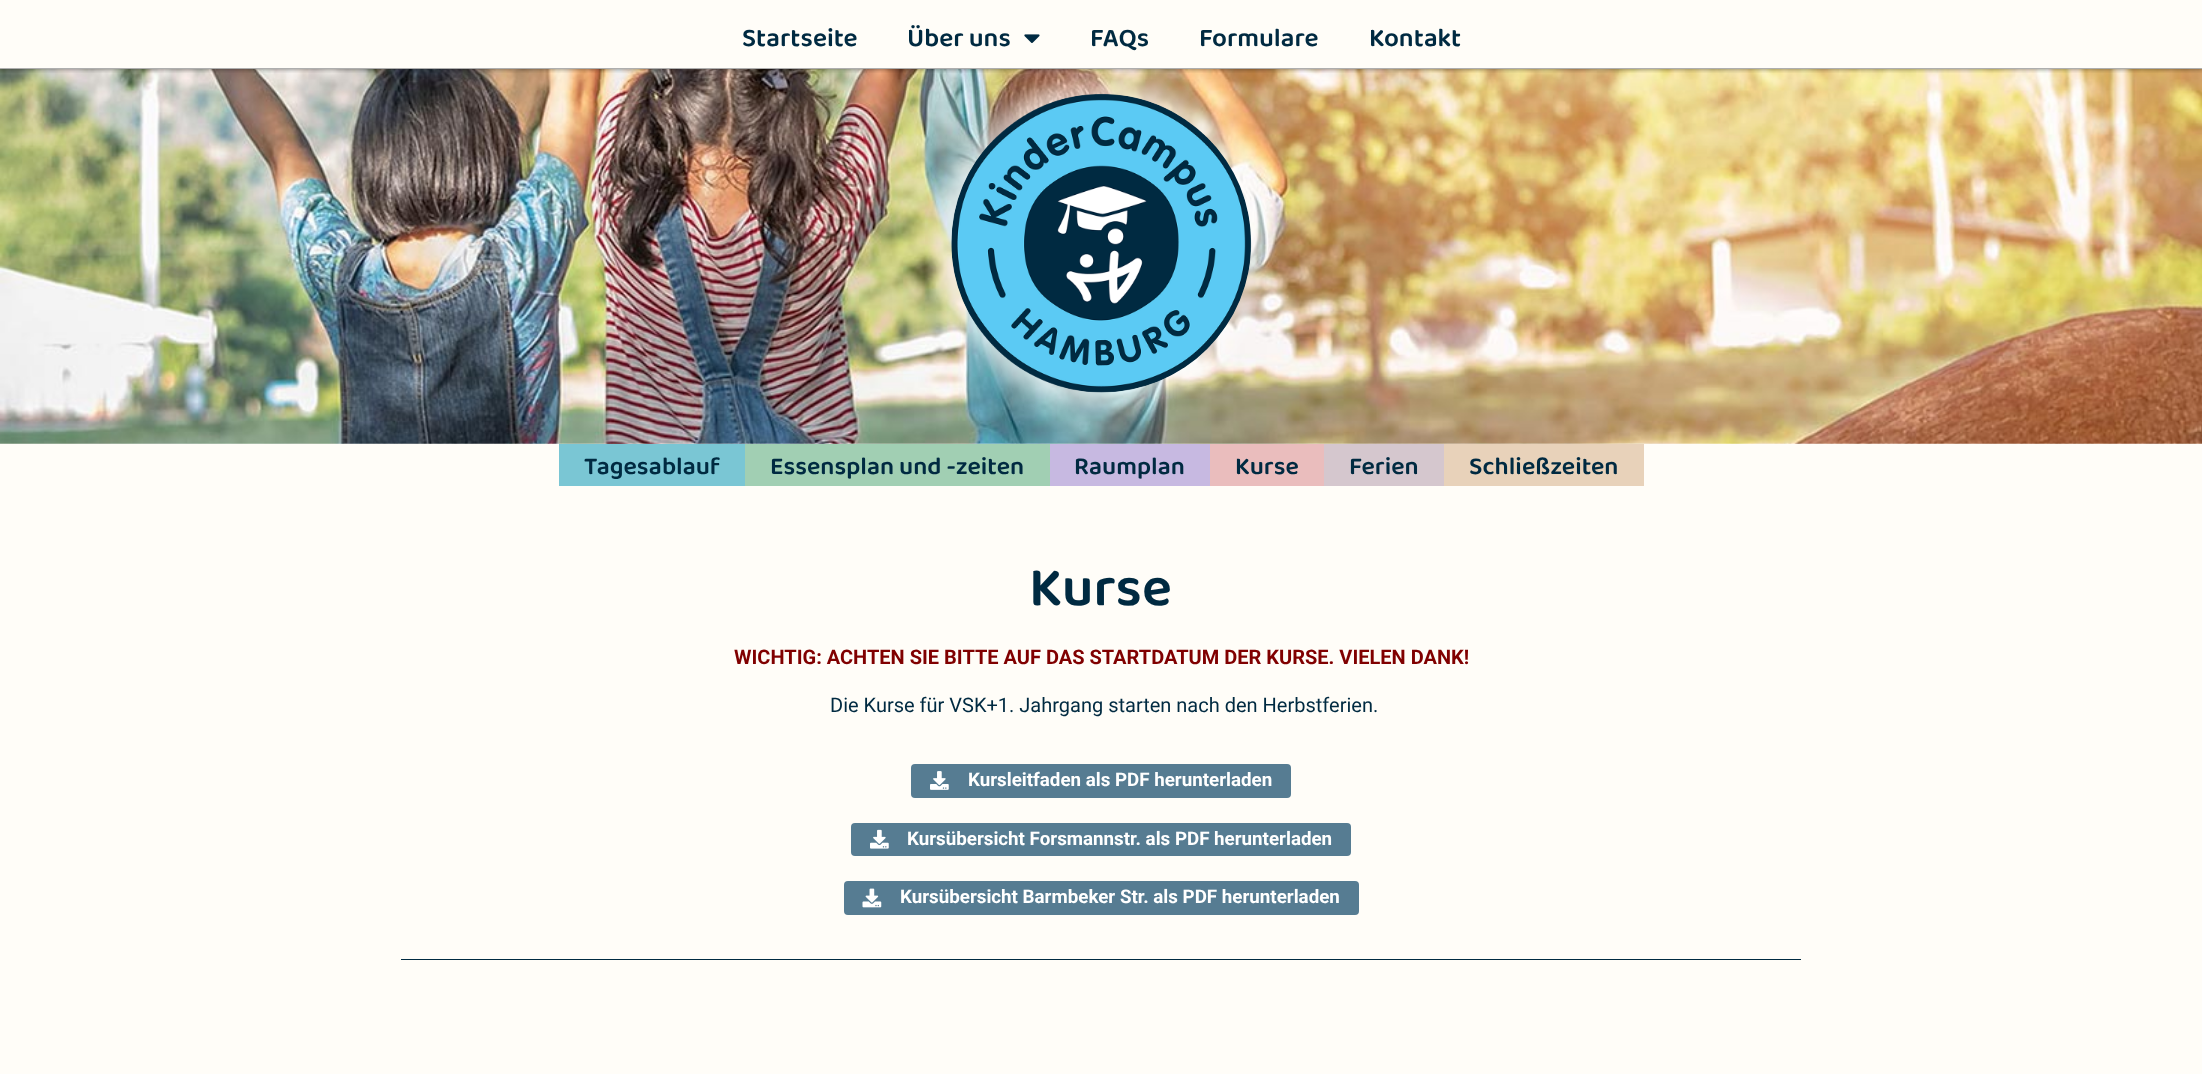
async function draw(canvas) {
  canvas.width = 2202
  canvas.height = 1074
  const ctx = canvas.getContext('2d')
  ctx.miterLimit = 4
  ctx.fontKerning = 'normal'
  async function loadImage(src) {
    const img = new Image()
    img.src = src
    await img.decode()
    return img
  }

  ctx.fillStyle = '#fffdf8'
  ctx.fillRect(0, 0, 2202, 1074)
  ctx.drawImage(await loadImage('image1.png'), 0, 69, 2202, 375)
  ctx.save()
  ctx.beginPath()
  ctx.rect(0, 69, 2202, 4)
  ctx.clip()
  ctx.fillStyle = '#00000080'
  ctx.filter = 'blur(2.5px)'
  ctx.beginPath()
  ctx.rect(0, 0, 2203, 69)
  ctx.fill()
  ctx.filter = 'none'
  ctx.restore()
  ctx.fillStyle = '#ffffff99'
  ctx.filter = 'blur(9.5px)'
  ctx.beginPath()
  ctx.roundRect(939, 81, 325, 324, 162)
  ctx.fill()
  ctx.filter = 'none'
  ctx.fillStyle = '#aeaeae'
  ctx.fillRect(0, 68, 2202, 1)
  ctx.font = '600 26.25px "Baloo 2"'
  ctx.fillStyle = '#002a41'
  ctx.fillText('Startseite', 742, 46)
  ctx.fillText('Über uns', 907, 46)
  ctx.drawImage(await loadImage('image0.png'), 1024, 34, 16, 9)
  ctx.fillText('FAQs', 1090, 46)
  ctx.fillText('Formulare', 1199, 46)
  ctx.fillText('Kontakt', 1369, 46)
  ctx.drawImage(await loadImage('image2.png'), 951, 93, 301, 300)
  ctx.fillStyle = '#7ac6d4'
  ctx.fillRect(559, 444, 186, 42)
  ctx.font = '600 25px "Baloo 2"'
  ctx.fillStyle = '#002a41'
  ctx.fillText('Tagesablauf', 584, 474)
  ctx.fillStyle = '#a1cfb3'
  ctx.fillRect(745, 444, 305, 42)
  ctx.fillStyle = '#002a41'
  ctx.fillText('Essensplan und -zeiten', 770, 474)
  ctx.fillStyle = '#c7b9e1'
  ctx.fillRect(1050, 444, 160, 42)
  ctx.fillStyle = '#002a41'
  ctx.fillText('Raumplan', 1074, 474)
  ctx.fillStyle = '#eabdbd'
  ctx.fillRect(1210, 444, 114, 42)
  ctx.fillStyle = '#002a41'
  ctx.fillText('Kurse', 1235, 474)
  ctx.fillStyle = '#d5c7ce'
  ctx.fillRect(1324, 444, 120, 42)
  ctx.fillStyle = '#002a41'
  ctx.fillText('Ferien', 1349, 474)
  ctx.fillStyle = '#e8d2ba'
  ctx.fillRect(1444, 444, 200, 42)
  ctx.fillStyle = '#002a41'
  ctx.fillText('Schließzeiten', 1469, 474)
  ctx.font = '600 56px "Baloo 2"'
  ctx.fillText('Kurse', 1029, 605)
  ctx.font = 'bold 20px Roboto'
  ctx.fillStyle = '#800000'
  ctx.fillText('WICHTIG: ACHTEN SIE BITTE AUF DAS STARTDATUM DER KURSE. VIELEN DANK!', 734, 664)
  ctx.font = '20px Roboto'
  ctx.fillStyle = '#002a41'
  ctx.fillText('Die Kurse für VSK+1. Jahrgang starten nach den Herbstferien.', 830, 712)
  ctx.fillStyle = '#567c92'
  ctx.beginPath()
  ctx.roundRect(911, 764, 380, 34, 4)
  ctx.fill()
  ctx.drawImage(await loadImage('image3.png'), 930, 771, 19, 19)
  ctx.font = 'bold 18.75px Roboto'
  ctx.fillStyle = '#fff'
  ctx.fillText('Kursleitfaden als PDF herunterladen', 968, 786)
  ctx.fillStyle = '#567c92'
  ctx.beginPath()
  ctx.roundRect(851, 823, 500, 33, 4)
  ctx.fill()
  ctx.drawImage(await loadImage('image4.png'), 870, 829, 19, 20)
  ctx.fillStyle = '#fff'
  ctx.fillText('Kursübersicht Forsmannstr. als PDF herunterladen', 907, 845)
  ctx.fillStyle = '#567c92'
  ctx.beginPath()
  ctx.roundRect(844, 881, 515, 34, 4)
  ctx.fill()
  ctx.drawImage(await loadImage('image5.png'), 862, 888, 20, 20)
  ctx.fillStyle = '#fff'
  ctx.fillText('Kursübersicht Barmbeker Str. als PDF herunterladen', 900, 903)
  ctx.fillStyle = '#002a41'
  ctx.fillRect(401, 959, 1400, 1)
}

draw(document.querySelector('canvas'))
